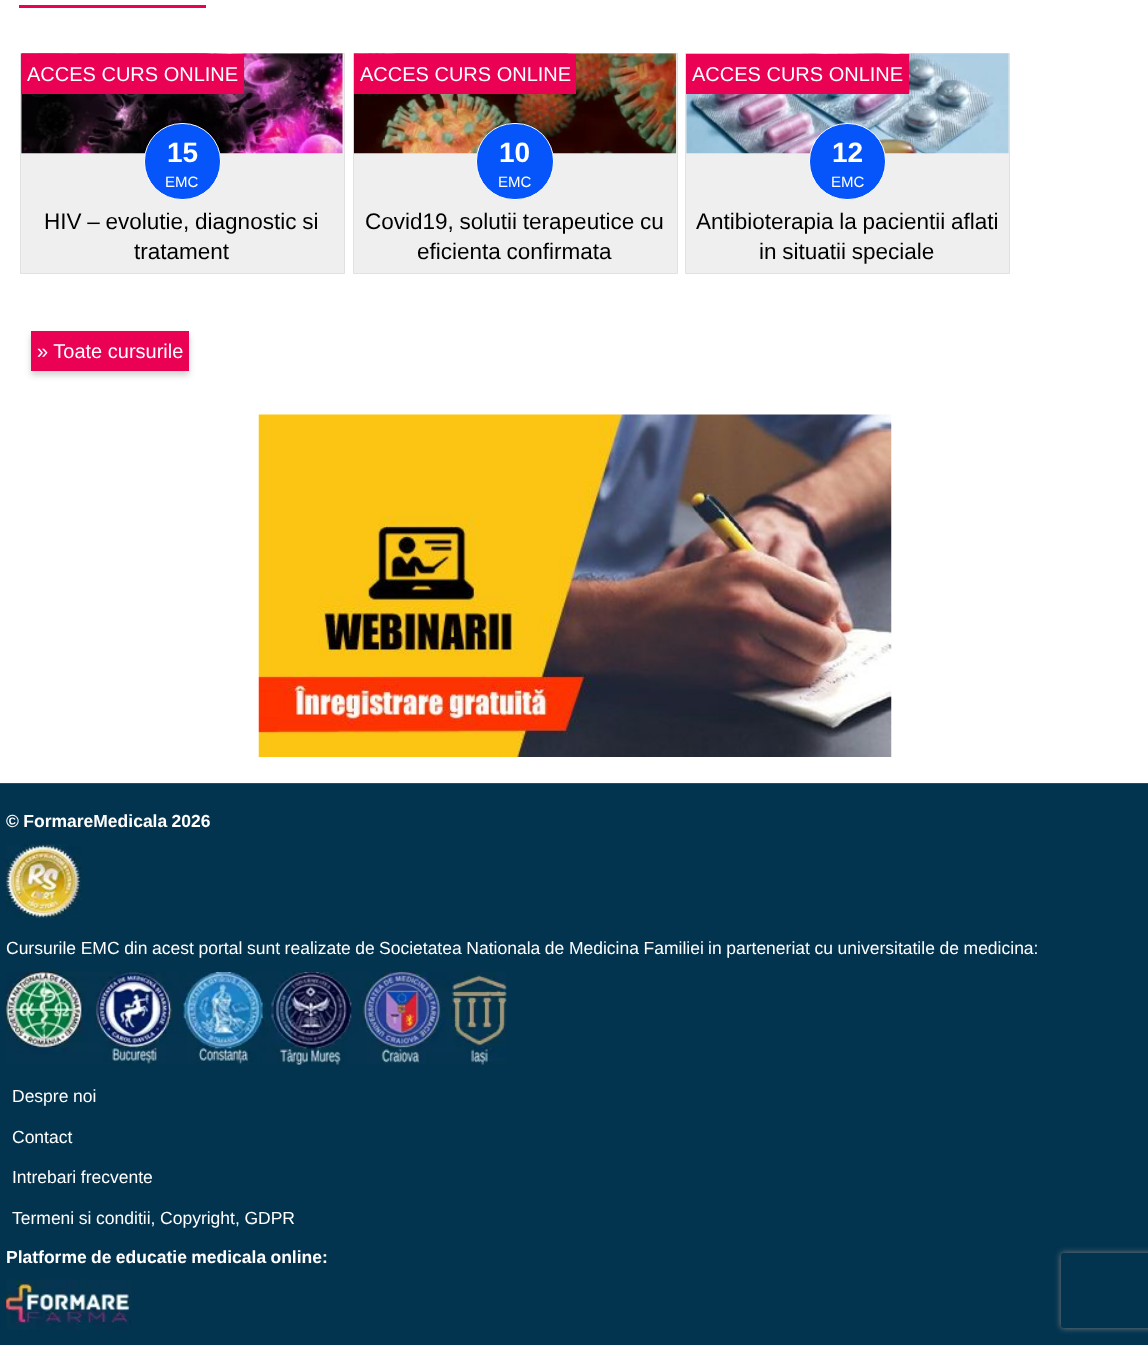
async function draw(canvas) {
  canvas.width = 1148
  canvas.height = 1345
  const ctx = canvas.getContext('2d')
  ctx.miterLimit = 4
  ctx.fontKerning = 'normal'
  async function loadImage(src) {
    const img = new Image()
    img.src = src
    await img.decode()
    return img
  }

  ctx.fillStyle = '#fff'
  ctx.fillRect(0, 0, 1148, 1345)
  ctx.fillStyle = '#ea0154'
  ctx.fillRect(19, 5, 187, 3)
  ctx.fillStyle = '#efefef'
  ctx.beginPath()
  ctx.rect(20.5, 53.5, 324, 220)
  ctx.fill()
  ctx.strokeStyle = '#e1e1e1'
  ctx.stroke()
  ctx.drawImage(await loadImage('image0.png'), 21, 53, 322, 101)
  ctx.fillStyle = '#ea0154'
  ctx.fillRect(21, 54, 223, 40)
  ctx.font = '20px Liberation Sans'
  ctx.fillStyle = '#fff'
  ctx.fillText('ACCES CURS ONLINE', 27, 81)
  ctx.fillStyle = '#0655fa'
  ctx.beginPath()
  ctx.roundRect(144.5, 123.5, 76, 76, 37.5)
  ctx.fill()
  ctx.strokeStyle = '#fff'
  ctx.stroke()
  ctx.font = 'bold 28px Liberation Sans'
  ctx.fillStyle = '#fff'
  ctx.fillText('15', 167, 162)
  ctx.font = '15px Liberation Sans'
  ctx.fillText('EMC', 165, 187)
  ctx.wordSpacing = '-0.5px'
  ctx.font = '22.5px Liberation Sans'
  ctx.fillStyle = '#000'
  ctx.fillText('HIV – evolutie, diagnostic si', 44, 229)
  ctx.wordSpacing = '0px'
  ctx.fillText('tratament', 134, 259)
  ctx.fillStyle = '#efefef'
  ctx.beginPath()
  ctx.rect(353.5, 53.5, 324, 220)
  ctx.fill()
  ctx.strokeStyle = '#e1e1e1'
  ctx.stroke()
  ctx.drawImage(await loadImage('image1.png'), 353, 53, 324, 101)
  ctx.fillStyle = '#ea0154'
  ctx.fillRect(354, 54, 222, 40)
  ctx.font = '20px Liberation Sans'
  ctx.fillStyle = '#fff'
  ctx.fillText('ACCES CURS ONLINE', 360, 81)
  ctx.fillStyle = '#0655fa'
  ctx.beginPath()
  ctx.roundRect(476.5, 123.5, 77, 76, 37.5)
  ctx.fill()
  ctx.strokeStyle = '#fff'
  ctx.stroke()
  ctx.font = 'bold 28px Liberation Sans'
  ctx.fillStyle = '#fff'
  ctx.fillText('10', 499, 162)
  ctx.font = '15px Liberation Sans'
  ctx.fillText('EMC', 498, 187)
  ctx.wordSpacing = '-0.5px'
  ctx.font = '22.5px Liberation Sans'
  ctx.fillStyle = '#000'
  ctx.fillText('Covid19, solutii terapeutice cu', 365, 229)
  ctx.fillText('eficienta confirmata', 417, 259)
  ctx.fillStyle = '#efefef'
  ctx.beginPath()
  ctx.rect(685.5, 53.5, 324, 220)
  ctx.fill()
  ctx.strokeStyle = '#e1e1e1'
  ctx.stroke()
  ctx.drawImage(await loadImage('image2.png'), 686, 53, 323, 101)
  ctx.fillStyle = '#ea0154'
  ctx.fillRect(686, 54, 223, 40)
  ctx.wordSpacing = '0px'
  ctx.font = '20px Liberation Sans'
  ctx.fillStyle = '#fff'
  ctx.fillText('ACCES CURS ONLINE', 692, 81)
  ctx.fillStyle = '#0655fa'
  ctx.beginPath()
  ctx.roundRect(809.5, 123.5, 76, 76, 37.5)
  ctx.fill()
  ctx.strokeStyle = '#fff'
  ctx.stroke()
  ctx.font = 'bold 28px Liberation Sans'
  ctx.fillStyle = '#fff'
  ctx.fillText('12', 832, 162)
  ctx.font = '15px Liberation Sans'
  ctx.fillText('EMC', 831, 187)
  ctx.wordSpacing = '-0.5px'
  ctx.font = '22.5px Liberation Sans'
  ctx.fillStyle = '#000'
  ctx.fillText('Antibioterapia la pacientii aflati', 696, 229)
  ctx.fillText('in situatii speciale', 759, 259)
  ctx.fillStyle = '#cfcfcf'
  ctx.filter = 'blur(3px)'
  ctx.beginPath()
  ctx.rect(31, 335, 158, 40)
  ctx.fill()
  ctx.filter = 'none'
  ctx.fillStyle = '#ea0154'
  ctx.fillRect(31, 331, 158, 40)
  ctx.wordSpacing = '0px'
  ctx.font = '20px Liberation Sans'
  ctx.fillStyle = '#fff'
  ctx.fillText('» Toate cursurile', 37, 358)
  ctx.drawImage(await loadImage('image3.png'), 258, 414, 634, 343)
  ctx.fillStyle = '#03344f'
  ctx.fillRect(0, 784, 1148, 561)
  ctx.fillStyle = '#0d557b'
  ctx.fillRect(0, 783, 1148, 1)
  ctx.wordSpacing = '-0.5px'
  ctx.font = 'bold 17.5px Liberation Sans'
  ctx.fillStyle = '#fff'
  ctx.fillText('© FormareMedicala 2026', 6, 827)
  ctx.drawImage(await loadImage('image4.png'), 6, 844, 75, 75)
  ctx.wordSpacing = '-0.25px'
  ctx.font = '17.5px Liberation Sans'
  ctx.fillText('Cursurile EMC din acest portal sunt realizate de', 6, 954)
  ctx.fillText('Societatea Nationala de Medicina Familiei', 379, 954)
  ctx.fillText('in parteneriat cu universitatile de medicina:', 708, 954)
  ctx.drawImage(await loadImage('image5.png'), 6, 972, 501, 93)
  ctx.fillText('Despre noi', 12, 1102)
  ctx.wordSpacing = '0px'
  ctx.fillText('Contact', 12, 1143)
  ctx.wordSpacing = '-0.25px'
  ctx.fillText('Intrebari frecvente', 12, 1183)
  ctx.fillText('Termeni si conditii, Copyright, GDPR', 12, 1224)
  ctx.wordSpacing = '-0.5px'
  ctx.font = 'bold 17.5px Liberation Sans'
  ctx.fillText('Platforme de educatie medicala online:', 6, 1263)
  ctx.drawImage(await loadImage('image6.png'), 6, 1279, 125, 51)
  ctx.save()
  ctx.beginPath()
  ctx.moveTo(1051, 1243)
  ctx.lineTo(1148, 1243)
  ctx.lineTo(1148, 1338)
  ctx.lineTo(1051, 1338)
  ctx.closePath()
  ctx.moveTo(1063.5, 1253)
  ctx.lineTo(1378.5, 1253)
  ctx.bezierCurveTo(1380, 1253, 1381, 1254, 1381, 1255.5)
  ctx.lineTo(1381, 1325.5)
  ctx.bezierCurveTo(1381, 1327, 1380, 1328, 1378.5, 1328)
  ctx.lineTo(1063.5, 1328)
  ctx.bezierCurveTo(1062, 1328, 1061, 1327, 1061, 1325.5)
  ctx.lineTo(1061, 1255.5)
  ctx.bezierCurveTo(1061, 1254, 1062, 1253, 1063.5, 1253)
  ctx.closePath()
  ctx.clip('evenodd')
  ctx.fillStyle = '#808080'
  ctx.filter = 'blur(3px)'
  ctx.beginPath()
  ctx.roundRect(1061, 1253, 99, 75, 2.5)
  ctx.fill()
  ctx.filter = 'none'
  ctx.restore()
}

draw(document.querySelector('canvas'))
